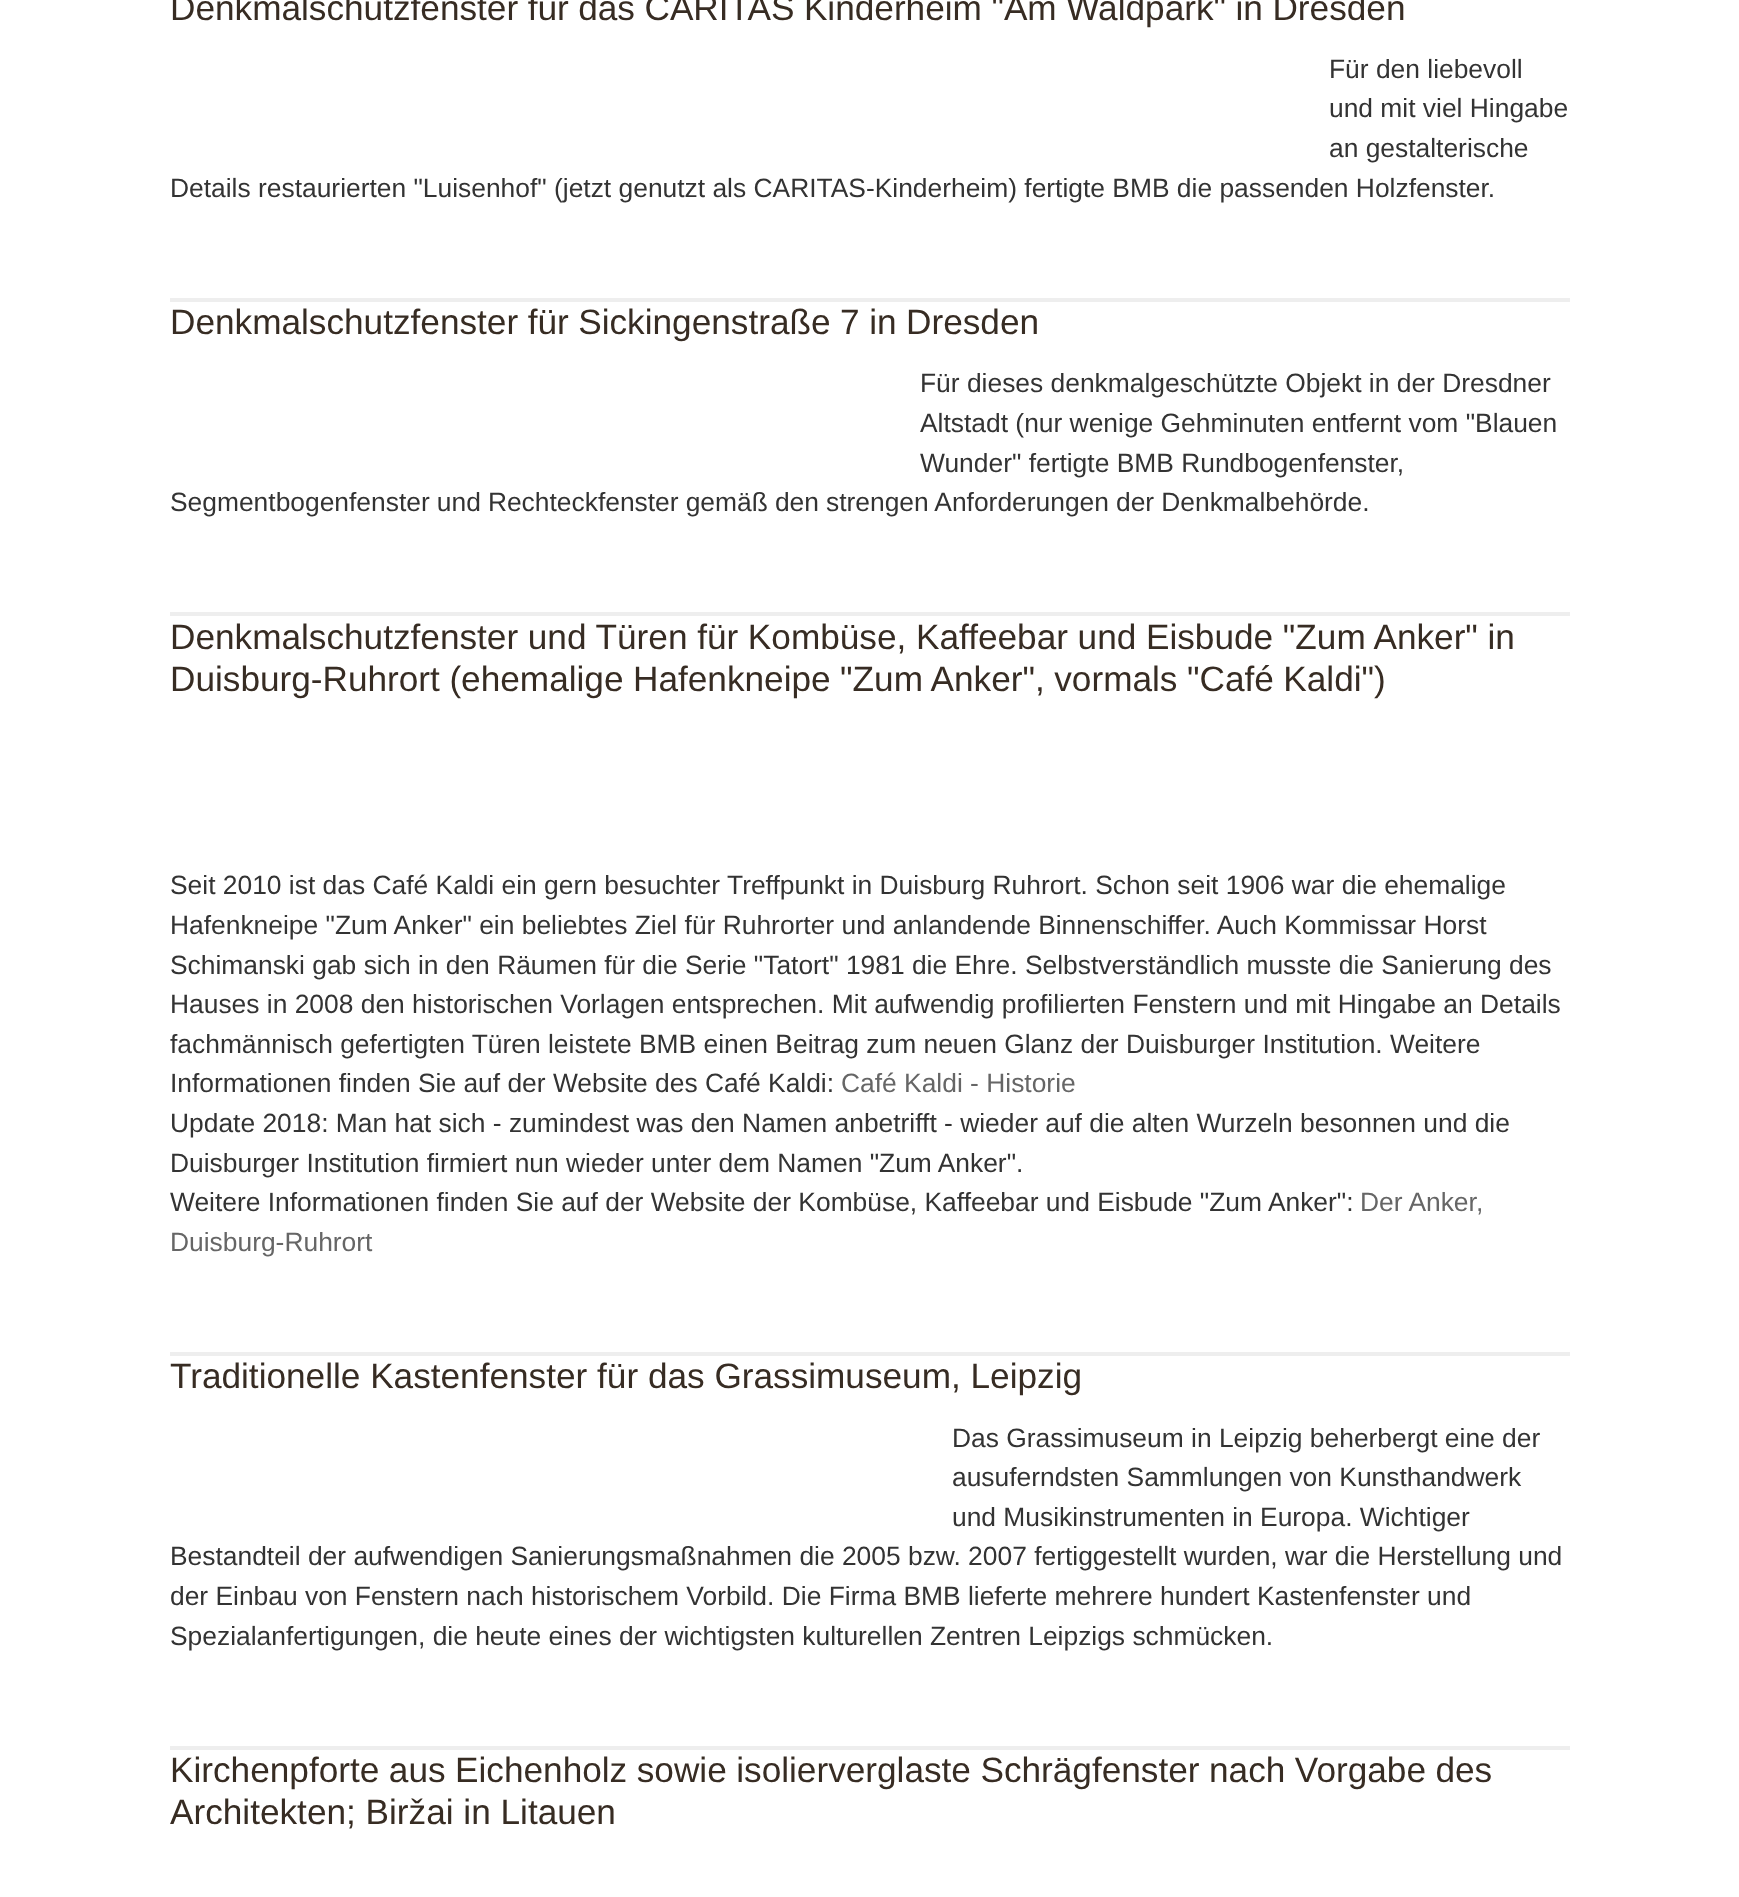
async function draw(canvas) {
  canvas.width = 1739
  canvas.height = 1897
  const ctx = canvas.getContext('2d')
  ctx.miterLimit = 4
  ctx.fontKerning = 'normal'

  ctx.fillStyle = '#fff'
  ctx.fillRect(0, 0, 1739, 1897)
  ctx.fillStyle = '#eee'
  ctx.fillRect(170, 298, 1400, 4)
  ctx.wordSpacing = '-0.25px'
  ctx.font = '35.2px Liberation Sans'
  ctx.fillStyle = '#372c23'
  ctx.fillText('Denkmalschutzfenster für das CARITAS Kinderheim "Am Waldpark" in Dresden', 170, 20)
  ctx.wordSpacing = '0px'
  ctx.font = '26.4px Liberation Sans'
  ctx.fillStyle = '#333'
  ctx.fillText('Für den liebevoll', 1329, 78)
  ctx.fillText('und mit viel Hingabe', 1329, 117)
  ctx.fillText('an gestalterische', 1329, 157)
  ctx.fillText('Details restaurierten "Luisenhof" (jetzt genutzt als CARITAS-Kinderheim) fertigte BMB die passenden Holzfenster.', 170, 197)
  ctx.fillStyle = '#eee'
  ctx.fillRect(170, 612, 1400, 4)
  ctx.wordSpacing = '-0.25px'
  ctx.font = '35.2px Liberation Sans'
  ctx.fillStyle = '#372c23'
  ctx.fillText('Denkmalschutzfenster für Sickingenstraße 7 in Dresden', 170, 334)
  ctx.wordSpacing = '0px'
  ctx.font = '26.4px Liberation Sans'
  ctx.fillStyle = '#333'
  ctx.fillText('Für dieses denkmalgeschützte Objekt in der Dresdner', 920, 392)
  ctx.fillText('Altstadt (nur wenige Gehminuten entfernt vom "Blauen', 920, 432)
  ctx.fillText('Wunder" fertigte BMB Rundbogenfenster,', 920, 472)
  ctx.wordSpacing = '-0.25px'
  ctx.fillText('Segmentbogenfenster und Rechteckfenster gemäß den strengen Anforderungen der Denkmalbehörde.', 170, 511)
  ctx.fillStyle = '#eee'
  ctx.fillRect(170, 1352, 1400, 4)
  ctx.wordSpacing = '-0.1px'
  ctx.font = '35.2px Liberation Sans'
  ctx.fillStyle = '#372c23'
  ctx.fillText('Denkmalschutzfenster und Türen für Kombüse, Kaffeebar und Eisbude "Zum Anker" in', 170, 649)
  ctx.wordSpacing = '-0.25px'
  ctx.fillText('Duisburg-Ruhrort (ehemalige Hafenkneipe "Zum Anker", vormals "Café Kaldi")', 170, 691)
  ctx.wordSpacing = '0px'
  ctx.font = '26.4px Liberation Sans'
  ctx.fillStyle = '#333'
  ctx.fillText('Seit 2010 ist das Café Kaldi ein gern besuchter Treffpunkt in Duisburg Ruhrort. Schon seit 1906 war die ehemalige', 170, 894)
  ctx.fillText('Hafenkneipe "Zum Anker" ein beliebtes Ziel für Ruhrorter und anlandende Binnenschiffer. Auch Kommissar Horst', 170, 934)
  ctx.fillText('Schimanski gab sich in den Räumen für die Serie "Tatort" 1981 die Ehre. Selbstverständlich musste die Sanierung des', 170, 974)
  ctx.fillText('Hauses in 2008 den historischen Vorlagen entsprechen. Mit aufwendig profilierten Fenstern und mit Hingabe an Details', 170, 1013)
  ctx.fillText('fachmännisch gefertigten Türen leistete BMB einen Beitrag zum neuen Glanz der Duisburger Institution. Weitere', 170, 1053)
  ctx.fillText('Informationen finden Sie auf der Website des Café Kaldi:', 170, 1092)
  ctx.fillStyle = '#666'
  ctx.fillText('Café Kaldi - Historie', 841, 1092)
  ctx.fillStyle = '#333'
  ctx.fillText('Update 2018: Man hat sich - zumindest was den Namen anbetrifft - wieder auf die alten Wurzeln besonnen und die', 170, 1132)
  ctx.fillText('Duisburger Institution firmiert nun wieder unter dem Namen "Zum Anker".', 170, 1172)
  ctx.fillText('Weitere Informationen finden Sie auf der Website der Kombüse, Kaffeebar und Eisbude "Zum Anker":', 170, 1211)
  ctx.fillStyle = '#666'
  ctx.fillText('Der Anker,', 1360, 1211)
  ctx.fillText('Duisburg-Ruhrort', 170, 1251)
  ctx.fillStyle = '#eee'
  ctx.fillRect(170, 1746, 1400, 4)
  ctx.font = '35.2px Liberation Sans'
  ctx.fillStyle = '#372c23'
  ctx.fillText('Traditionelle Kastenfenster für das Grassimuseum, Leipzig', 170, 1388)
  ctx.font = '26.4px Liberation Sans'
  ctx.fillStyle = '#333'
  ctx.fillText('Das Grassimuseum in Leipzig beherbergt eine der', 952, 1447)
  ctx.fillText('ausuferndsten Sammlungen von Kunsthandwerk', 952, 1486)
  ctx.fillText('und Musikinstrumenten in Europa. Wichtiger', 952, 1526)
  ctx.fillText('Bestandteil der aufwendigen Sanierungsmaßnahmen die 2005 bzw. 2007 fertiggestellt wurden, war die Herstellung und', 170, 1565)
  ctx.fillText('der Einbau von Fenstern nach historischem Vorbild. Die Firma BMB lieferte mehrere hundert Kastenfenster und', 170, 1605)
  ctx.fillText('Spezialanfertigungen, die heute eines der wichtigsten kulturellen Zentren Leipzigs schmücken.', 170, 1645)
  ctx.wordSpacing = '-0.25px'
  ctx.font = '35.2px Liberation Sans'
  ctx.fillStyle = '#372c23'
  ctx.fillText('Kirchenpforte aus Eichenholz sowie isolierverglaste Schrägfenster nach Vorgabe des', 170, 1782)
  ctx.wordSpacing = '0px'
  ctx.fillText('Architekten; Biržai in Litauen', 170, 1824)
}

draw(document.querySelector('canvas'))
